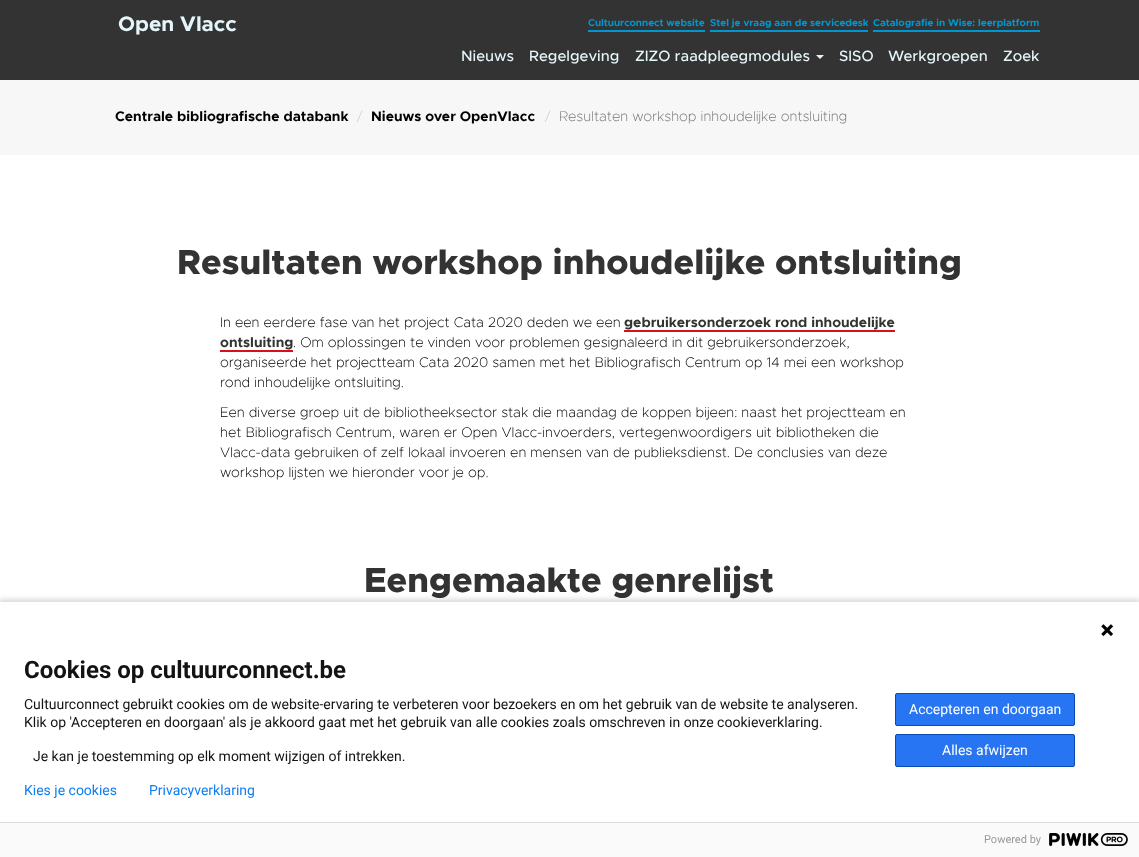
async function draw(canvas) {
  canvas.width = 1139
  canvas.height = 857
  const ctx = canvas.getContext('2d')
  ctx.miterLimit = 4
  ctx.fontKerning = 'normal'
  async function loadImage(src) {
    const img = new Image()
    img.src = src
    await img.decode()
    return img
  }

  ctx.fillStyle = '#fff'
  ctx.fillRect(0, 0, 1139, 857)
  ctx.fillStyle = '#333'
  ctx.fillRect(0, 0, 1139, 80)
  ctx.font = 'bold 21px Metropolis'
  ctx.fillStyle = '#e5f6fa'
  ctx.fillText('Open Vlacc', 118, 31)
  ctx.fillStyle = '#0097d1'
  ctx.fillRect(588, 30, 117, 2)
  ctx.font = 'bold 10px Metropolis'
  ctx.fillText('Cultuurconnect website', 588, 26)
  ctx.fillRect(710, 30, 158, 2)
  ctx.fillText('Stel je vraag aan de servicedesk', 710, 26)
  ctx.fillRect(873, 30, 167, 2)
  ctx.fillText('Catalografie in Wise: leerplatform', 873, 26)
  ctx.font = '500 15px Metropolis'
  ctx.fillStyle = '#e5f6fa'
  ctx.fillText('Nieuws', 461, 61)
  ctx.fillText('Regelgeving', 529, 61)
  ctx.fillText('ZIZO raadpleegmodules', 635, 61)
  ctx.beginPath()
  ctx.moveTo(816, 55)
  ctx.lineTo(824, 55)
  ctx.lineTo(820, 59)
  ctx.closePath()
  ctx.fill()
  ctx.fillText('SISO', 839, 61)
  ctx.fillText('Werkgroepen', 888, 61)
  ctx.fillText('Zoek', 1003, 61)
  ctx.fillStyle = '#f7f7f7'
  ctx.fillRect(0, 80, 1139, 75)
  ctx.font = 'bold 14px Metropolis'
  ctx.fillStyle = '#000'
  ctx.fillText('Centrale bibliografische databank', 115, 121)
  ctx.font = '200 14px Metropolis'
  ctx.fillStyle = '#ccc'
  ctx.fillText('/', 357, 121)
  ctx.font = 'bold 14px Metropolis'
  ctx.fillStyle = '#000'
  ctx.fillText('Nieuws over OpenVlacc', 371, 121)
  ctx.font = '200 14px Metropolis'
  ctx.fillStyle = '#ccc'
  ctx.fillText('/', 545, 121)
  ctx.fillStyle = '#777'
  ctx.fillText('Resultaten workshop inhoudelijke ontsluiting', 559, 121)
  ctx.font = '800 35px Metropolis'
  ctx.fillStyle = '#333'
  ctx.fillText('Resultaten workshop inhoudelijke ontsluiting', 177, 274)
  ctx.font = '200 14px Metropolis'
  ctx.fillStyle = '#000'
  ctx.fillText('In een eerdere fase van het project Cata 2020 deden we een', 220, 327)
  ctx.font = 'bold 14px Metropolis'
  ctx.fillStyle = '#333'
  ctx.fillText('gebruikersonderzoek rond inhoudelijke', 624, 327)
  ctx.fillStyle = '#d7101c'
  ctx.fillRect(624, 330, 271, 2)
  ctx.fillStyle = '#333'
  ctx.fillText('ontsluiting', 220, 347)
  ctx.fillStyle = '#d7101c'
  ctx.fillRect(220, 350, 73, 2)
  ctx.font = '200 14px Metropolis'
  ctx.fillStyle = '#000'
  ctx.fillText('. Om oplossingen te vinden voor problemen gesignaleerd in dit gebruikersonderzoek,', 293, 347)
  ctx.fillText('organiseerde het projectteam Cata 2020 samen met het Bibliografisch Centrum op 14 mei een workshop', 220, 367)
  ctx.fillText('rond inhoudelijke ontsluiting.', 220, 387)
  ctx.fillText('Een diverse groep uit de bibliotheeksector stak die maandag de koppen bijeen: naast het projectteam en', 220, 417)
  ctx.fillText('het Bibliografisch Centrum, waren er Open Vlacc-invoerders, vertegenwoordigers uit bibliotheken die', 220, 437)
  ctx.fillText('Vlacc-data gebruiken of zelf lokaal invoeren en mensen van de publieksdienst. De conclusies van deze', 220, 457)
  ctx.fillText('workshop lijsten we hieronder voor je op.', 220, 477)
  ctx.font = '800 35px Metropolis'
  ctx.fillStyle = '#333'
  ctx.fillText('Eengemaakte genrelijst', 364, 592)
  ctx.fillStyle = '#00000024'
  ctx.filter = 'blur(2.5px)'
  ctx.beginPath()
  ctx.rect(-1, 599, 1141, 257)
  ctx.fill()
  ctx.filter = 'none'
  ctx.fillStyle = '#fff'
  ctx.fillRect(0, 602, 1139, 220)
  ctx.drawImage(await loadImage('image0.png'), 1101, 624, 13, 13)
  ctx.font = 'bold 24px Roboto'
  ctx.fillStyle = '#131313'
  ctx.fillText('Cookies op cultuurconnect.be', 24, 678)
  ctx.font = '14px Roboto'
  ctx.fillText('Cultuurconnect gebruikt cookies om de website-ervaring te verbeteren voor bezoekers en om het gebruik van de website te analyseren.', 24, 709)
  ctx.fillText('Klik op \'Accepteren en doorgaan\' als je akkoord gaat met het gebruik van alle cookies zoals omschreven in onze cookieverklaring.', 24, 727)
  ctx.fillText('Je kan je toestemming op elk moment wijzigen of intrekken.', 33, 761)
  ctx.fillStyle = '#2775f2'
  ctx.beginPath()
  ctx.roundRect(895.5, 693.5, 179, 32, 1.5)
  ctx.fill()
  ctx.strokeStyle = '#0b4bb3'
  ctx.stroke()
  ctx.fillStyle = '#fff'
  ctx.fillText('Accepteren en doorgaan', 909, 714)
  ctx.fillStyle = '#2775f2'
  ctx.beginPath()
  ctx.roundRect(895.5, 734.5, 179, 32, 1.5)
  ctx.fill()
  ctx.stroke()
  ctx.fillStyle = '#fff'
  ctx.fillText('Alles afwijzen', 942, 755)
  ctx.fillStyle = '#107ef1'
  ctx.fillText('Kies je cookies', 24, 795)
  ctx.fillText('Privacyverklaring', 149, 795)
  ctx.fillStyle = '#fafafa'
  ctx.fillRect(0, 823, 1139, 34)
  ctx.fillStyle = '#ddd'
  ctx.fillRect(0, 822, 1139, 1)
  ctx.font = '11px Roboto'
  ctx.fillStyle = '#999'
  ctx.fillText('Powered by', 984, 843)
  ctx.drawImage(await loadImage('image1.png'), 1049, 833, 79, 13)
}

draw(document.querySelector('canvas'))
